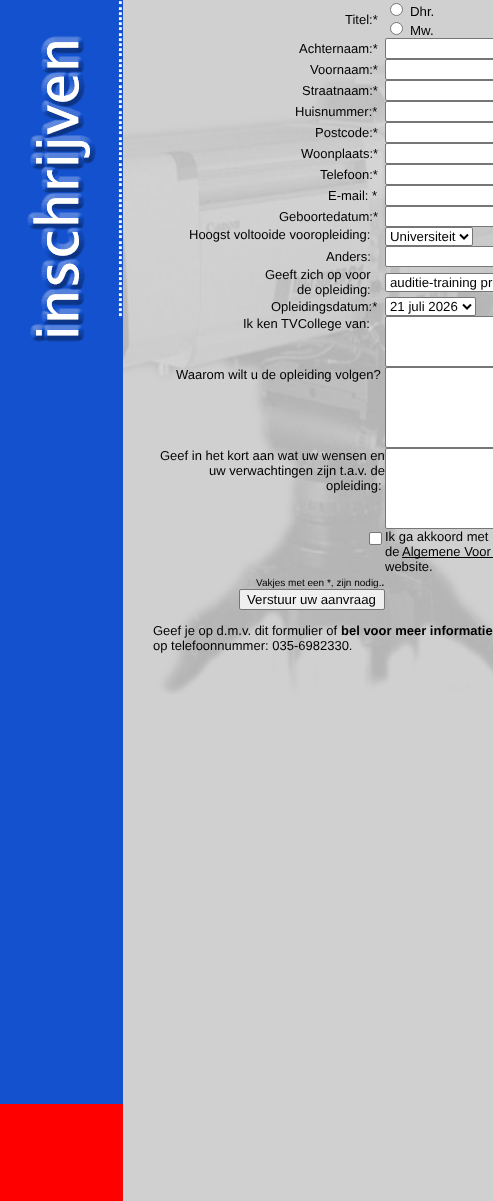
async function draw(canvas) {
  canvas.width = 493
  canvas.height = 1201
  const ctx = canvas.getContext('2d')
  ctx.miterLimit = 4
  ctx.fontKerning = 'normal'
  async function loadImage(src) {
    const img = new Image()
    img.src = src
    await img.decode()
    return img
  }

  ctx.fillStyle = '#d0d0d0'
  ctx.fillRect(0, 0, 493, 1201)
  ctx.drawImage(await loadImage('image0.png'), 123, 54, 370, 640)
  ctx.fillStyle = '#1351ce'
  ctx.fillRect(0, 0, 123, 1104)
  ctx.fillStyle = '#fe0000'
  ctx.fillRect(0, 1104, 123, 97)
  ctx.drawImage(await loadImage('image1.png'), 27, 1, 95, 341)
  ctx.font = '13px Liberation Sans'
  ctx.fillStyle = '#000'
  ctx.fillText('Titel:*', 345, 24)
  ctx.fillStyle = '#fff'
  ctx.beginPath()
  ctx.arc(396.5, 9.5, 6, 0, 2 * Math.PI)
  ctx.fill()
  ctx.strokeStyle = '#767676'
  ctx.stroke()
  ctx.font = '13.25px Liberation Sans'
  ctx.fillStyle = '#000'
  ctx.fillText('Dhr.', 410, 16)
  ctx.fillStyle = '#fff'
  ctx.beginPath()
  ctx.arc(396.5, 28.5, 6, 0, 2 * Math.PI)
  ctx.fill()
  ctx.stroke()
  ctx.fillStyle = '#000'
  ctx.fillText('Mw.', 410, 35)
  ctx.font = '13px Liberation Sans'
  ctx.fillText('Achternaam:*', 299, 53)
  ctx.fillStyle = '#fff'
  ctx.beginPath()
  ctx.roundRect(385.5, 38.5, 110, 20, 1.5)
  ctx.fill()
  ctx.stroke()
  ctx.fillStyle = '#000'
  ctx.fillText('Voornaam:*', 310, 74)
  ctx.fillStyle = '#fff'
  ctx.beginPath()
  ctx.roundRect(385.5, 59.5, 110, 20, 1.5)
  ctx.fill()
  ctx.stroke()
  ctx.fillStyle = '#000'
  ctx.fillText('Straatnaam:*', 302, 95)
  ctx.fillStyle = '#fff'
  ctx.beginPath()
  ctx.roundRect(385.5, 80.5, 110, 20, 1.5)
  ctx.fill()
  ctx.stroke()
  ctx.fillStyle = '#000'
  ctx.fillText('Huisnummer:*', 295, 116)
  ctx.fillStyle = '#fff'
  ctx.beginPath()
  ctx.roundRect(385.5, 101.5, 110, 20, 1.5)
  ctx.fill()
  ctx.stroke()
  ctx.fillStyle = '#000'
  ctx.fillText('Postcode:*', 315, 137)
  ctx.fillStyle = '#fff'
  ctx.beginPath()
  ctx.roundRect(385.5, 122.5, 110, 20, 1.5)
  ctx.fill()
  ctx.stroke()
  ctx.fillStyle = '#000'
  ctx.fillText('Woonplaats:*', 301, 158)
  ctx.fillStyle = '#fff'
  ctx.beginPath()
  ctx.roundRect(385.5, 143.5, 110, 20, 1.5)
  ctx.fill()
  ctx.stroke()
  ctx.fillStyle = '#000'
  ctx.fillText('Telefoon:*', 320, 179)
  ctx.fillStyle = '#fff'
  ctx.beginPath()
  ctx.roundRect(385.5, 164.5, 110, 20, 1.5)
  ctx.fill()
  ctx.stroke()
  ctx.fillStyle = '#000'
  ctx.fillText('E-mail: *', 328, 200)
  ctx.fillStyle = '#fff'
  ctx.beginPath()
  ctx.roundRect(385.5, 185.5, 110, 20, 1.5)
  ctx.fill()
  ctx.stroke()
  ctx.fillStyle = '#000'
  ctx.fillText('Geboortedatum:*', 279, 221)
  ctx.fillStyle = '#fff'
  ctx.beginPath()
  ctx.roundRect(385.5, 206.5, 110, 20, 1.5)
  ctx.fill()
  ctx.stroke()
  ctx.fillStyle = '#000'
  ctx.fillText('Hoogst voltooide vooropleiding:', 189, 239)
  ctx.fillStyle = '#fff'
  ctx.beginPath()
  ctx.roundRect(385.5, 227.5, 87, 18, 1.5)
  ctx.fill()
  ctx.stroke()
  ctx.beginPath()
  ctx.moveTo(460, 234.5)
  ctx.lineTo(464, 238.5)
  ctx.lineTo(468, 234.5)
  ctx.strokeStyle = '#000'
  ctx.lineWidth = 2
  ctx.stroke()
  ctx.font = '13.25px Liberation Sans'
  ctx.fillStyle = '#000'
  ctx.fillText('Universiteit', 390, 241)
  ctx.font = '13px Liberation Sans'
  ctx.fillText('Anders:', 326, 261)
  ctx.fillStyle = '#fff'
  ctx.beginPath()
  ctx.roundRect(385.5, 246.5, 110, 20, 1.5)
  ctx.fill()
  ctx.strokeStyle = '#767676'
  ctx.lineWidth = 1
  ctx.stroke()
  ctx.fillStyle = '#000'
  ctx.fillText('Geeft zich op voor', 265, 279)
  ctx.fillText('de opleiding:', 297, 294)
  ctx.fillStyle = '#fff'
  ctx.beginPath()
  ctx.roundRect(385.5, 273.5, 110, 18, 1.5)
  ctx.fill()
  ctx.stroke()
  ctx.font = '13.25px Liberation Sans'
  ctx.fillStyle = '#000'
  ctx.fillText('auditie-training pr', 390, 287)
  ctx.font = '13px Liberation Sans'
  ctx.fillText('Opleidingsdatum:*', 271, 311)
  ctx.fillStyle = '#fff'
  ctx.beginPath()
  ctx.roundRect(385.5, 297.5, 90, 18, 1.5)
  ctx.fill()
  ctx.stroke()
  ctx.beginPath()
  ctx.moveTo(463, 304.5)
  ctx.lineTo(467, 308.5)
  ctx.lineTo(471, 304.5)
  ctx.strokeStyle = '#000'
  ctx.lineWidth = 2
  ctx.stroke()
  ctx.font = '13.25px Liberation Sans'
  ctx.fillStyle = '#000'
  ctx.fillText('21 juli 2026', 390, 311)
  ctx.font = '13px Liberation Sans'
  ctx.fillText('Ik ken TVCollege van:', 243, 328)
  ctx.fillStyle = '#fff'
  ctx.beginPath()
  ctx.roundRect(385.5, 316.5, 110, 50, 1.5)
  ctx.fill()
  ctx.strokeStyle = '#767676'
  ctx.lineWidth = 1
  ctx.stroke()
  ctx.fillStyle = '#000'
  ctx.fillText('Waarom wilt u de opleiding volgen?', 176, 379)
  ctx.fillStyle = '#fff'
  ctx.beginPath()
  ctx.roundRect(385.5, 367.5, 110, 80, 1.5)
  ctx.fill()
  ctx.stroke()
  ctx.fillStyle = '#000'
  ctx.fillText('Geef in het kort aan wat uw wensen en', 160, 460)
  ctx.fillText('uw verwachtingen zijn t.a.v. de', 209, 475)
  ctx.fillText('opleiding:', 326, 490)
  ctx.fillStyle = '#fff'
  ctx.beginPath()
  ctx.roundRect(385.5, 448.5, 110, 80, 1.5)
  ctx.fill()
  ctx.stroke()
  ctx.beginPath()
  ctx.roundRect(369.5, 532.5, 12, 12, 1.5)
  ctx.fill()
  ctx.stroke()
  ctx.fillStyle = '#000'
  ctx.fillText('Ik ga akkoord met', 385, 541)
  ctx.fillText('de', 385, 556)
  ctx.fillRect(402, 557, 91, 1)
  ctx.fillText('Algemene Voor', 402, 556)
  ctx.fillText('website.', 385, 571)
  ctx.font = '10px Liberation Sans'
  ctx.fillText('Vakjes met een *, zijn nodig.', 256, 586)
  ctx.font = '13px Liberation Sans'
  ctx.fillText('.', 381, 586)
  ctx.fillStyle = '#efefef'
  ctx.beginPath()
  ctx.roundRect(239.5, 589.5, 145, 20, 1.5)
  ctx.fill()
  ctx.stroke()
  ctx.font = '13.25px Liberation Sans'
  ctx.fillStyle = '#000'
  ctx.fillText('Verstuur uw aanvraag', 247, 604)
  ctx.font = '13px Liberation Sans'
  ctx.fillText('Geef je op d.m.v. dit formulier of', 153, 635)
  ctx.font = 'bold 13px Liberation Sans'
  ctx.fillText('bel voor meer informatie', 341, 635)
  ctx.font = '13px Liberation Sans'
  ctx.fillText('op telefoonnummer: 035-6982330.', 153, 650)
}

draw(document.querySelector('canvas'))
